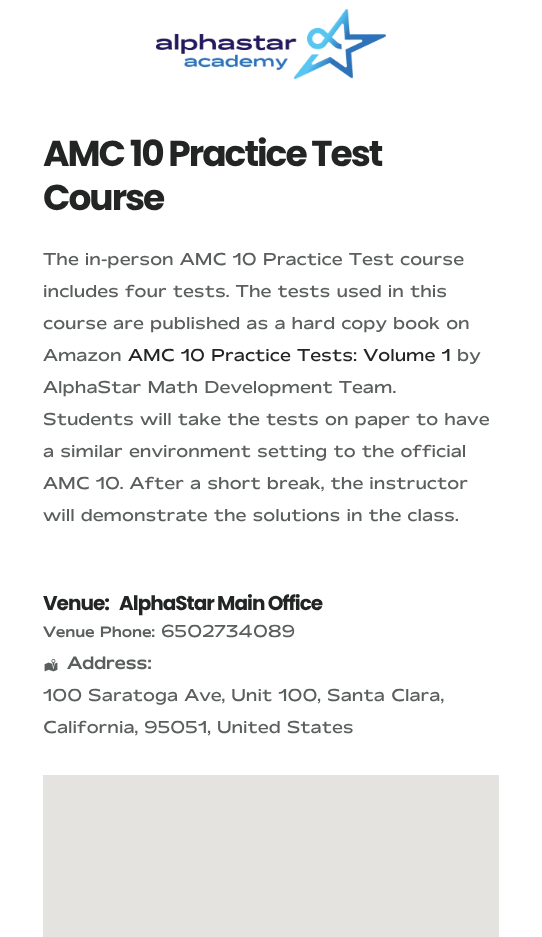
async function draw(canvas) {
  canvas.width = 542
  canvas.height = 937
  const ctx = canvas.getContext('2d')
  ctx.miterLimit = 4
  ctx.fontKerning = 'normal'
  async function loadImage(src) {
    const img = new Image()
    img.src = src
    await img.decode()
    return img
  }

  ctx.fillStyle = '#fff'
  ctx.fillRect(0, 0, 542, 937)
  ctx.drawImage(await loadImage('image0.png'), 156, 9, 230, 70)
  ctx.letterSpacing = '-2px'
  ctx.font = 'bold 36px Poppins'
  ctx.fillStyle = '#232525'
  ctx.fillText('AMC 10 Practice Test', 43, 166)
  ctx.fillText('Course', 43, 210)
  ctx.letterSpacing = '0px'
  ctx.font = '16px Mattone'
  ctx.fillStyle = '#5b5e5e'
  ctx.fillText('The in-person AMC 10 Practice Test course', 43, 265)
  ctx.fillText('includes four tests. The tests used in this', 43, 297)
  ctx.fillText('course are published as a hard copy book on', 43, 329)
  ctx.fillText('Amazon', 43, 361)
  ctx.fillStyle = '#232525'
  ctx.fillText('AMC 10 Practice Tests: Volume 1', 128, 361)
  ctx.fillStyle = '#5b5e5e'
  ctx.fillText('by', 457, 361)
  ctx.fillText('AlphaStar Math Development Team.', 43, 393)
  ctx.fillText('Students will take the tests on paper to have', 43, 425)
  ctx.fillText('a similar environment setting to the official', 43, 457)
  ctx.fillText('AMC 10. After a short break, the instructor', 43, 489)
  ctx.fillText('will demonstrate the solutions in the class.', 43, 521)
  ctx.letterSpacing = '-1px'
  ctx.font = 'bold 20px Poppins'
  ctx.fillStyle = '#232525'
  ctx.fillText('Venue:', 43, 610)
  ctx.fillText('AlphaStar Main Office', 119, 610)
  ctx.letterSpacing = '0.2px'
  ctx.font = 'bold 13.5px Mattone'
  ctx.fillStyle = '#5b5e5e'
  ctx.fillText('Venue Phone:', 43, 637)
  ctx.letterSpacing = '0px'
  ctx.font = '16px Mattone'
  ctx.fillText('6502734089', 161, 637)
  ctx.drawImage(await loadImage('image1.png'), 44, 659, 14, 13)
  ctx.font = 'bold 16px Mattone'
  ctx.fillText('Address:', 67, 669)
  ctx.font = '16px Mattone'
  ctx.fillText('100 Saratoga Ave, Unit 100, Santa Clara,', 43, 701)
  ctx.fillText('California, 95051, United States', 43, 733)
  ctx.fillStyle = '#e5e3df'
  ctx.fillRect(43, 775, 456, 162)
}

draw(document.querySelector('canvas'))
